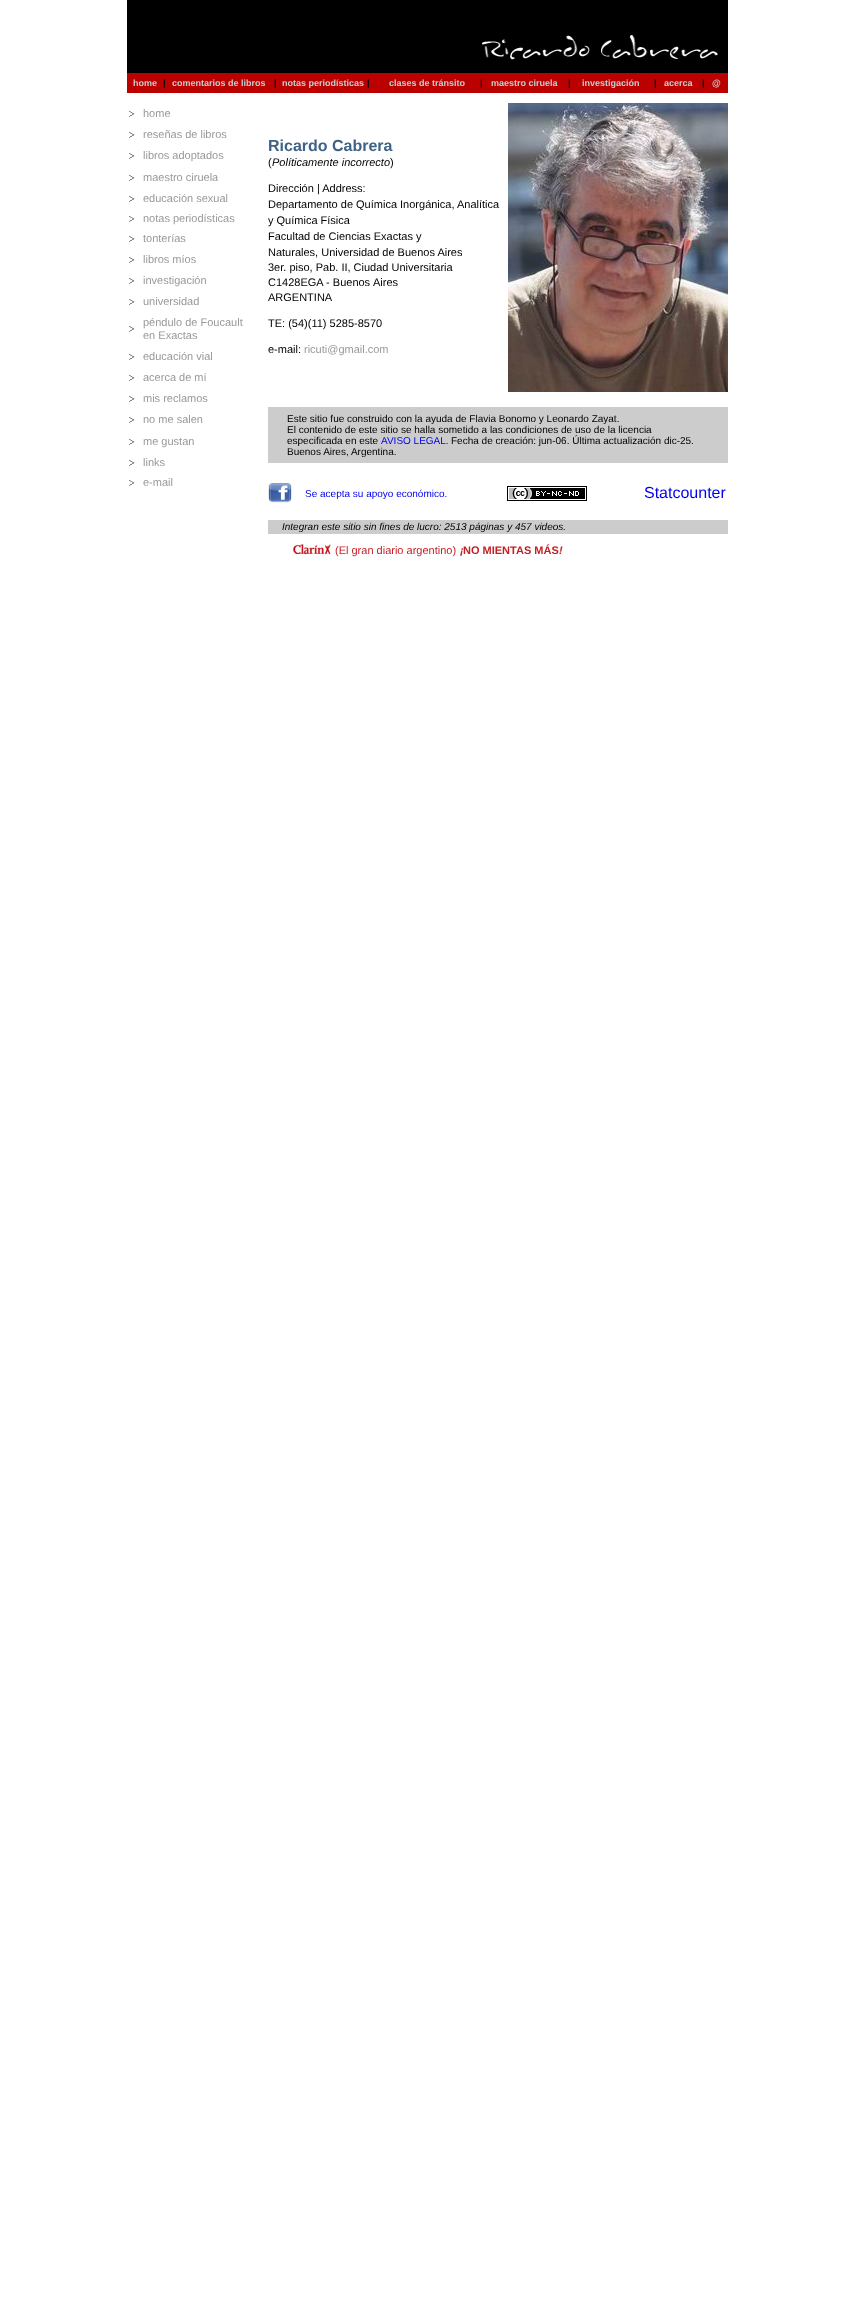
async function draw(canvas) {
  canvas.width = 855
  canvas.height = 2299
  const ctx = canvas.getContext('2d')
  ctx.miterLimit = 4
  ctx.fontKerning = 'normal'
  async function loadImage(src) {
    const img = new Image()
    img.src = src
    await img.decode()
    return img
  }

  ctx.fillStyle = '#fff'
  ctx.fillRect(0, 0, 855, 2299)
  ctx.fillStyle = '#000'
  ctx.fillRect(127, 0, 601, 73)
  ctx.drawImage(await loadImage('image0.png'), 482, 35, 236, 25)
  ctx.fillStyle = '#b00'
  ctx.fillRect(127, 73, 601, 20)
  ctx.font = 'bold 9px Liberation Sans'
  ctx.fillStyle = '#ccc'
  ctx.fillText('home', 133, 86)
  ctx.fillStyle = '#000'
  ctx.fillText('|', 163, 86)
  ctx.fillStyle = '#ccc'
  ctx.fillText('comentarios de libros', 172, 86)
  ctx.fillStyle = '#000'
  ctx.fillText('|', 274, 86)
  ctx.fillStyle = '#ccc'
  ctx.fillText('notas periodísticas', 282, 86)
  ctx.fillStyle = '#000'
  ctx.fillText('|', 367, 86)
  ctx.fillStyle = '#ccc'
  ctx.fillText('clases de tránsito', 389, 86)
  ctx.font = '9px Liberation Sans'
  ctx.fillStyle = '#000'
  ctx.fillText('|', 480, 86)
  ctx.font = 'bold 9px Liberation Sans'
  ctx.fillStyle = '#ccc'
  ctx.fillText('maestro ciruela', 491, 86)
  ctx.fillStyle = '#000'
  ctx.fillText('|', 568, 86)
  ctx.fillStyle = '#ccc'
  ctx.fillText('investigación', 582, 86)
  ctx.fillStyle = '#000'
  ctx.fillText('|', 654, 86)
  ctx.fillStyle = '#ccc'
  ctx.fillText('acerca', 664, 86)
  ctx.fillStyle = '#000'
  ctx.fillText('|', 702, 86)
  ctx.fillStyle = '#ccc'
  ctx.fillText('@', 712, 86)
  ctx.drawImage(await loadImage('image1.png'), 129, 111, 6, 6)
  ctx.font = '11px Liberation Sans'
  ctx.fillStyle = '#999'
  ctx.fillText('home', 143, 117)
  ctx.drawImage(await loadImage('image1.png'), 129, 132, 6, 6)
  ctx.fillText('reseñas de libros', 143, 138)
  ctx.drawImage(await loadImage('image1.png'), 129, 153, 6, 6)
  ctx.fillText('libros adoptados', 143, 159)
  ctx.drawImage(await loadImage('image1.png'), 129, 175, 6, 6)
  ctx.fillText('maestro ciruela', 143, 181)
  ctx.drawImage(await loadImage('image1.png'), 129, 196, 6, 6)
  ctx.fillText('educación sexual', 143, 202)
  ctx.drawImage(await loadImage('image1.png'), 129, 216, 6, 6)
  ctx.fillText('notas periodísticas', 143, 222)
  ctx.drawImage(await loadImage('image1.png'), 129, 236, 6, 6)
  ctx.fillText('tonterías', 143, 242)
  ctx.drawImage(await loadImage('image1.png'), 129, 257, 6, 6)
  ctx.fillText('libros míos', 143, 263)
  ctx.drawImage(await loadImage('image1.png'), 129, 278, 6, 6)
  ctx.fillText('investigación', 143, 284)
  ctx.drawImage(await loadImage('image1.png'), 129, 299, 6, 6)
  ctx.fillText('universidad', 143, 305)
  ctx.drawImage(await loadImage('image1.png'), 129, 326, 6, 6)
  ctx.fillText('péndulo de Foucault', 143, 326)
  ctx.fillText('en Exactas', 143, 339)
  ctx.drawImage(await loadImage('image1.png'), 129, 354, 6, 6)
  ctx.fillText('educación vial', 143, 360)
  ctx.drawImage(await loadImage('image1.png'), 129, 375, 6, 6)
  ctx.fillText('acerca de mí', 143, 381)
  ctx.drawImage(await loadImage('image1.png'), 129, 396, 6, 6)
  ctx.fillText('mis reclamos', 143, 402)
  ctx.drawImage(await loadImage('image1.png'), 129, 417, 6, 6)
  ctx.fillText('no me salen', 143, 423)
  ctx.drawImage(await loadImage('image1.png'), 129, 439, 6, 6)
  ctx.fillText('me gustan', 143, 445)
  ctx.drawImage(await loadImage('image1.png'), 129, 460, 6, 6)
  ctx.fillText('links', 143, 466)
  ctx.drawImage(await loadImage('image1.png'), 129, 480, 6, 6)
  ctx.fillText('e-mail', 143, 486)
  ctx.font = 'bold 16px Liberation Sans'
  ctx.fillStyle = '#3f6386'
  ctx.fillText('Ricardo Cabrera', 268, 151)
  ctx.font = '11px Liberation Sans'
  ctx.fillStyle = '#000'
  ctx.fillText('(', 268, 166)
  ctx.font = 'italic 11px Liberation Sans'
  ctx.fillText('Políticamente incorrecto', 272, 166)
  ctx.font = '11px Liberation Sans'
  ctx.fillText(')', 390, 166)
  ctx.fillText('Dirección | Address:', 268, 192)
  ctx.fillText('Departamento de Química Inorgánica, Analítica', 268, 208)
  ctx.fillText('y Química Física', 268, 224)
  ctx.fillText('Facultad de Ciencias Exactas y', 268, 240)
  ctx.fillText('Naturales, Universidad de Buenos Aires', 268, 256)
  ctx.fillText('3er. piso, Pab. II, Ciudad Universitaria', 268, 271)
  ctx.fillText('C1428EGA - Buenos', 268, 286)
  ctx.fillText('Aires', 373, 286)
  ctx.fillText('ARGENTINA', 268, 301)
  ctx.fillText('TE: (54)(11) 5285-8570', 268, 327)
  ctx.fillText('e-mail:', 268, 353)
  ctx.fillStyle = '#999'
  ctx.fillText('ricuti@gmail.com', 304, 353)
  ctx.drawImage(await loadImage('image2.png'), 508, 103, 220, 289)
  ctx.fillStyle = '#ccc'
  ctx.fillRect(268, 407, 460, 56)
  ctx.font = '10px Liberation Sans'
  ctx.fillStyle = '#000'
  ctx.fillText('Este sitio fue construido con la ayuda de Flavia Bonomo y Leonardo Zayat.', 287, 422)
  ctx.fillText('El contenido de este sitio se halla sometido a las condiciones de uso de la licencia', 287, 433)
  ctx.fillText('especificada en este', 287, 444)
  ctx.fillStyle = '#00e'
  ctx.fillText('AVISO LEGAL.', 381, 444)
  ctx.fillStyle = '#000'
  ctx.fillText('Fecha de creación: jun-06. Última actualización dic-25.', 451, 444)
  ctx.fillText('Buenos Aires, Argentina.', 287, 455)
  ctx.drawImage(await loadImage('image3.png'), 268, 483, 24, 20)
  ctx.fillStyle = '#00e'
  ctx.fillText('Se acepta su apoyo económico.', 305, 497)
  ctx.drawImage(await loadImage('image4.png'), 507, 486, 80, 15)
  ctx.font = '16px Liberation Sans'
  ctx.fillText('Statcounter', 644, 498)
  ctx.fillStyle = '#ccc'
  ctx.fillRect(268, 520, 460, 14)
  ctx.font = 'italic 10px Liberation Sans'
  ctx.fillStyle = '#000'
  ctx.fillText('Integran este sitio sin fines de lucro: 2513 páginas y 457 videos.', 282, 530)
  ctx.drawImage(await loadImage('image5.png'), 292, 544, 40, 10)
  ctx.font = '11px Liberation Sans'
  ctx.fillStyle = '#c41e24'
  ctx.fillText('(El gran diario argentino)', 335, 554)
  ctx.font = 'italic bold 11px Liberation Sans'
  ctx.fillText('¡', 460, 554)
  ctx.font = 'bold 11px Liberation Sans'
  ctx.fillText('NO MIENTAS MÁS', 463, 554)
  ctx.font = 'italic bold 11px Liberation Sans'
  ctx.fillText('!', 559, 554)
}

draw(document.querySelector('canvas'))
